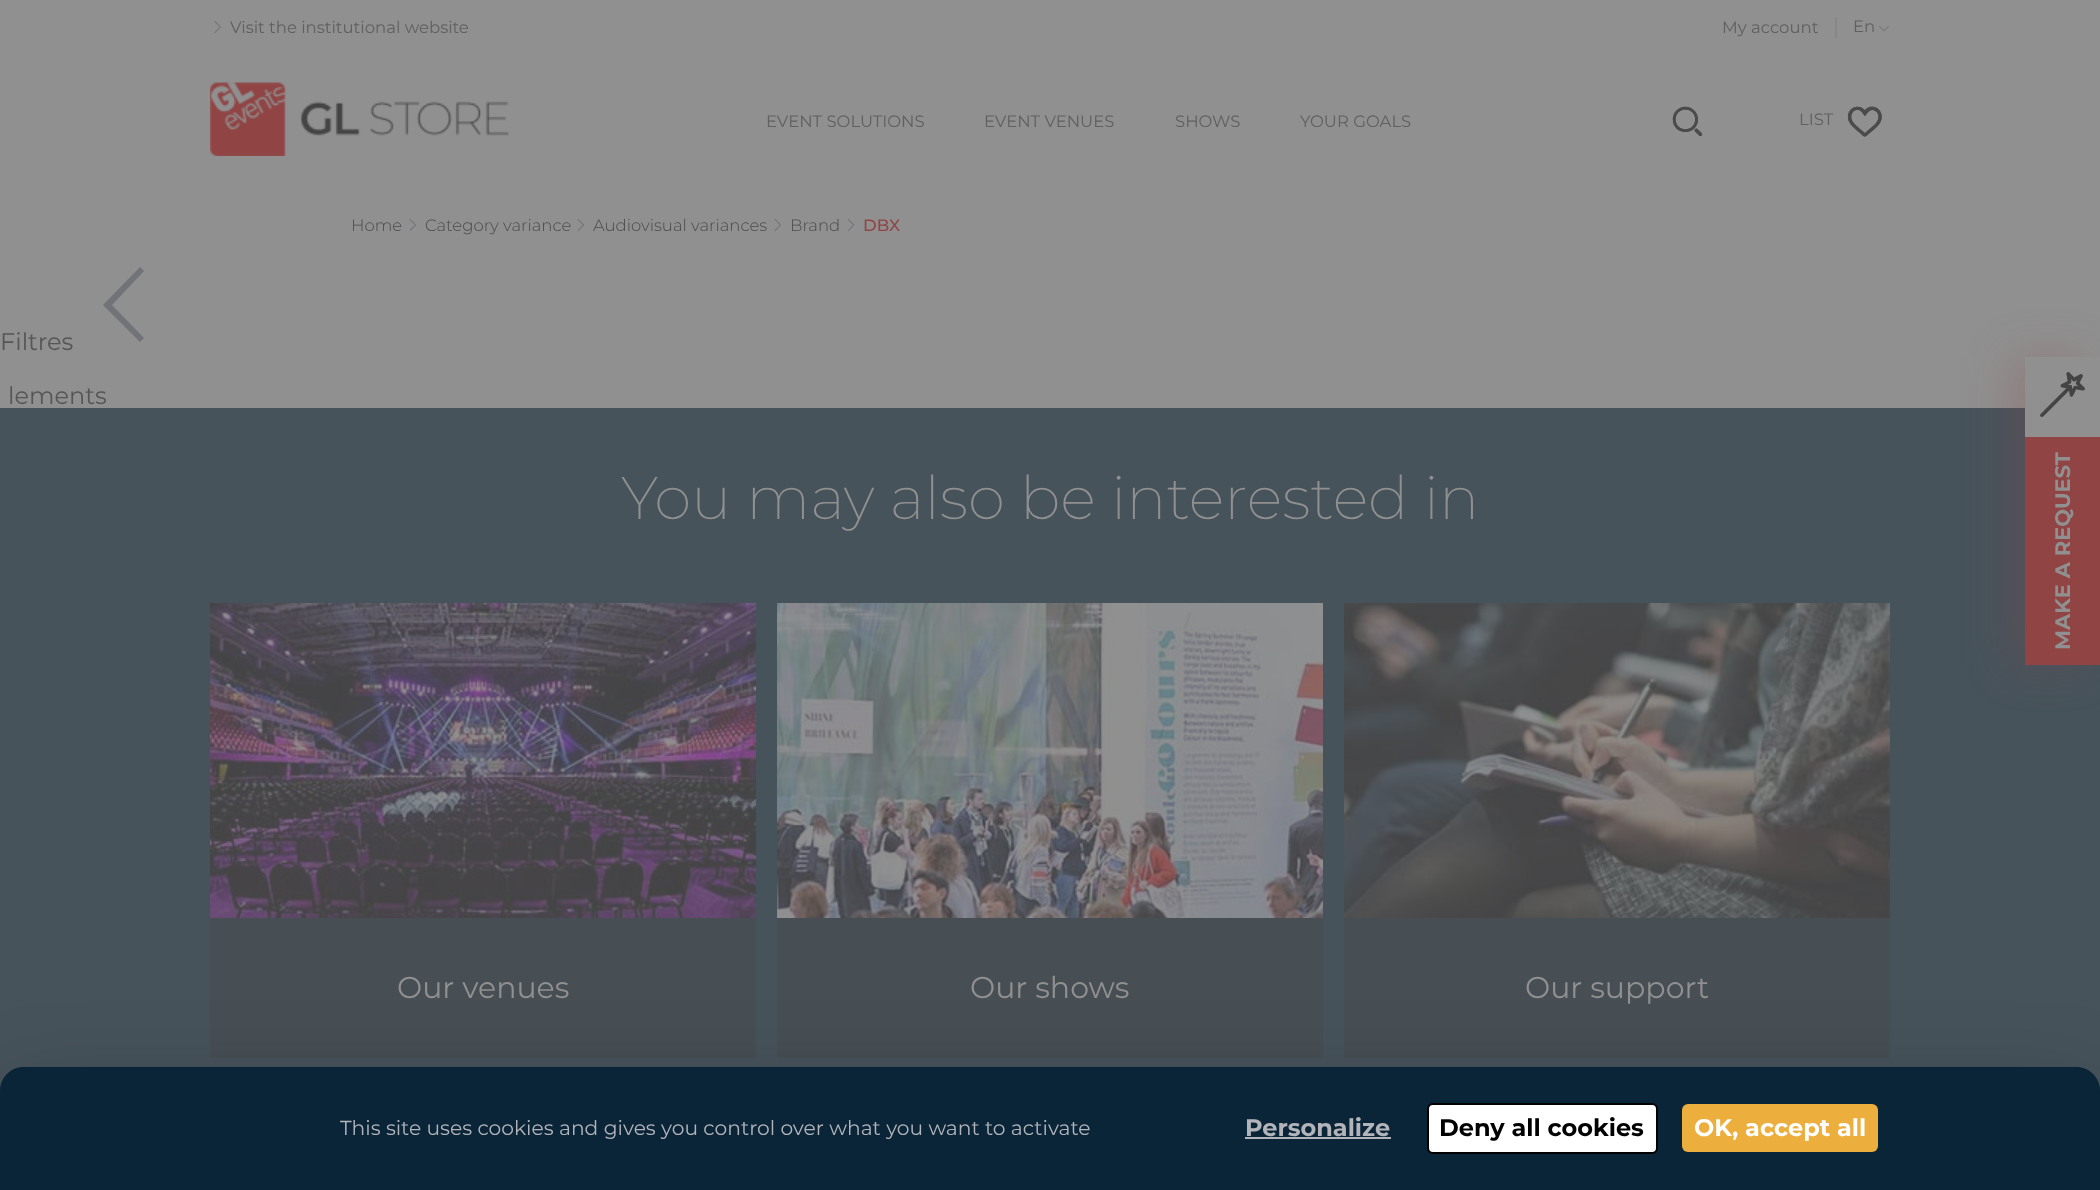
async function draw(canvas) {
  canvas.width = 2100
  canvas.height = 1190
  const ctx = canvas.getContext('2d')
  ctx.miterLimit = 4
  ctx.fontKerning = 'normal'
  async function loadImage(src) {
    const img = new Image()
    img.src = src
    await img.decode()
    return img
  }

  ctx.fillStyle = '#909090'
  ctx.fillRect(0, 0, 2100, 1190)
  ctx.drawImage(await loadImage('image0.png'), 214, 20, 7, 14)
  ctx.font = '16.5px Montserrat'
  ctx.fillStyle = '#606060'
  ctx.fillText('Visit the institutional website', 230, 33)
  ctx.fillText('My account', 1722, 33)
  ctx.fillStyle = '#878787'
  ctx.fillRect(1835, 17, 2, 21)
  ctx.fillStyle = '#606060'
  ctx.fillText('En', 1853, 32)
  ctx.drawImage(await loadImage('image1.png'), 1879, 26, 10, 6)
  ctx.drawImage(await loadImage('image2.png'), 210, 82, 299, 74)
  ctx.fillText('EVENT SOLUTIONS', 766, 127)
  ctx.fillText('EVENT VENUES', 984, 127)
  ctx.fillText('SHOWS', 1175, 127)
  ctx.fillText('YOUR GOALS', 1300, 127)
  ctx.drawImage(await loadImage('image3.png'), 1672, 106, 30, 30)
  ctx.fillText('LIST', 1799, 125)
  ctx.drawImage(await loadImage('image4.png'), 1847, 106, 35, 31)
  ctx.font = '300 16.5px Montserrat'
  ctx.fillStyle = '#4b4b4b'
  ctx.fillText('Home', 351, 231)
  ctx.drawImage(await loadImage('image5.png'), 409, 218, 7, 14)
  ctx.fillText('Category variance', 425, 231)
  ctx.drawImage(await loadImage('image6.png'), 577, 218, 8, 14)
  ctx.fillText('Audiovisual variances', 593, 231)
  ctx.drawImage(await loadImage('image7.png'), 774, 218, 7, 14)
  ctx.fillText('Brand', 790, 231)
  ctx.drawImage(await loadImage('image8.png'), 847, 218, 8, 14)
  ctx.font = '500 16.5px Montserrat'
  ctx.fillStyle = '#904444'
  ctx.fillText('DBX', 863, 231)
  ctx.font = '24px Montserrat'
  ctx.fillStyle = '#565656'
  ctx.fillText('Filtres', 0, 350)
  ctx.fillStyle = '#717378'
  ctx.beginPath()
  ctx.moveTo(112, 305)
  ctx.lineTo(144, 271)
  ctx.lineTo(140, 267)
  ctx.lineTo(103, 305)
  ctx.lineTo(140, 342)
  ctx.lineTo(144, 338)
  ctx.closePath()
  ctx.fill('evenodd')
  ctx.fillStyle = '#565656'
  ctx.fillText('lements', 8, 404)
  ctx.fillStyle = '#47535b'
  ctx.fillRect(0, 408, 2100, 683)
  ctx.font = '200 60px Montserrat'
  ctx.fillStyle = '#909090'
  ctx.fillText('You may also be interested in', 621, 519)
  ctx.drawImage(await loadImage('image9.png'), 210, 603, 546, 315)
  ctx.fillStyle = '#474e54'
  ctx.fillRect(210, 918, 546, 140)
  ctx.font = '30px Montserrat'
  ctx.fillStyle = '#909090'
  ctx.fillText('Our venues', 397, 998)
  ctx.drawImage(await loadImage('image10.png'), 777, 603, 546, 315)
  ctx.fillStyle = '#474e54'
  ctx.fillRect(777, 918, 546, 140)
  ctx.fillStyle = '#909090'
  ctx.fillText('Our shows', 970, 998)
  ctx.drawImage(await loadImage('image11.png'), 1344, 603, 546, 315)
  ctx.fillStyle = '#474e54'
  ctx.fillRect(1344, 918, 546, 140)
  ctx.fillStyle = '#909090'
  ctx.fillText('Our support', 1525, 998)
  ctx.fillStyle = '#88464a45'
  ctx.filter = 'blur(22.5px)'
  ctx.beginPath()
  ctx.rect(2010, 357, 75, 308)
  ctx.fill()
  ctx.filter = 'none'
  ctx.fillStyle = '#909090'
  ctx.fillRect(2025, 357, 75, 80)
  ctx.drawImage(await loadImage('image12.png'), 2040, 372, 45, 45)
  ctx.fillStyle = '#904444'
  ctx.fillRect(2025, 437, 75, 228)
  ctx.font = 'bold 21px Montserrat'
  ctx.fillStyle = '#909090'
  ctx.save()
  ctx.translate(2070, 650)
  ctx.rotate(-90 * Math.PI / 180)
  ctx.fillText('MAKE A REQUEST', 0, 0)
  ctx.restore()
  ctx.fillStyle = '#00000040'
  ctx.filter = 'blur(45px)'
  ctx.beginPath()
  ctx.roundRect(0, 1097, 2100, 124, 24)
  ctx.fill()
  ctx.filter = 'none'
  ctx.fillStyle = '#0a2438'
  ctx.beginPath()
  ctx.moveTo(24, 1067)
  ctx.lineTo(2076, 1067)
  ctx.bezierCurveTo(2089.5, 1067, 2100, 1077.5, 2100, 1091)
  ctx.lineTo(2100, 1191)
  ctx.lineTo(0, 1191)
  ctx.lineTo(0, 1091)
  ctx.bezierCurveTo(0, 1077.5, 10.5, 1067, 24, 1067)
  ctx.closePath()
  ctx.fill()
  ctx.font = '20.25px Montserrat'
  ctx.fillStyle = '#b2b4ba'
  ctx.fillText('This site uses cookies and gives you control over what you want to activate', 340, 1135)
  ctx.font = 'bold 24px Montserrat'
  ctx.fillText('Personalize', 1245, 1136)
  ctx.fillRect(1245, 1137, 146, 2)
  ctx.fillStyle = '#fff'
  ctx.beginPath()
  ctx.roundRect(1428, 1104, 229, 49, 5)
  ctx.fill()
  ctx.strokeStyle = '#000'
  ctx.lineWidth = 2
  ctx.stroke()
  ctx.fillStyle = '#000'
  ctx.fillText('Deny all cookies', 1439, 1136)
  ctx.fillStyle = '#ecae3c'
  ctx.beginPath()
  ctx.roundRect(1682, 1104, 196, 48, 6)
  ctx.fill()
  ctx.fillStyle = '#fff'
  ctx.fillText('OK, accept all', 1694, 1136)
}

draw(document.querySelector('canvas'))
